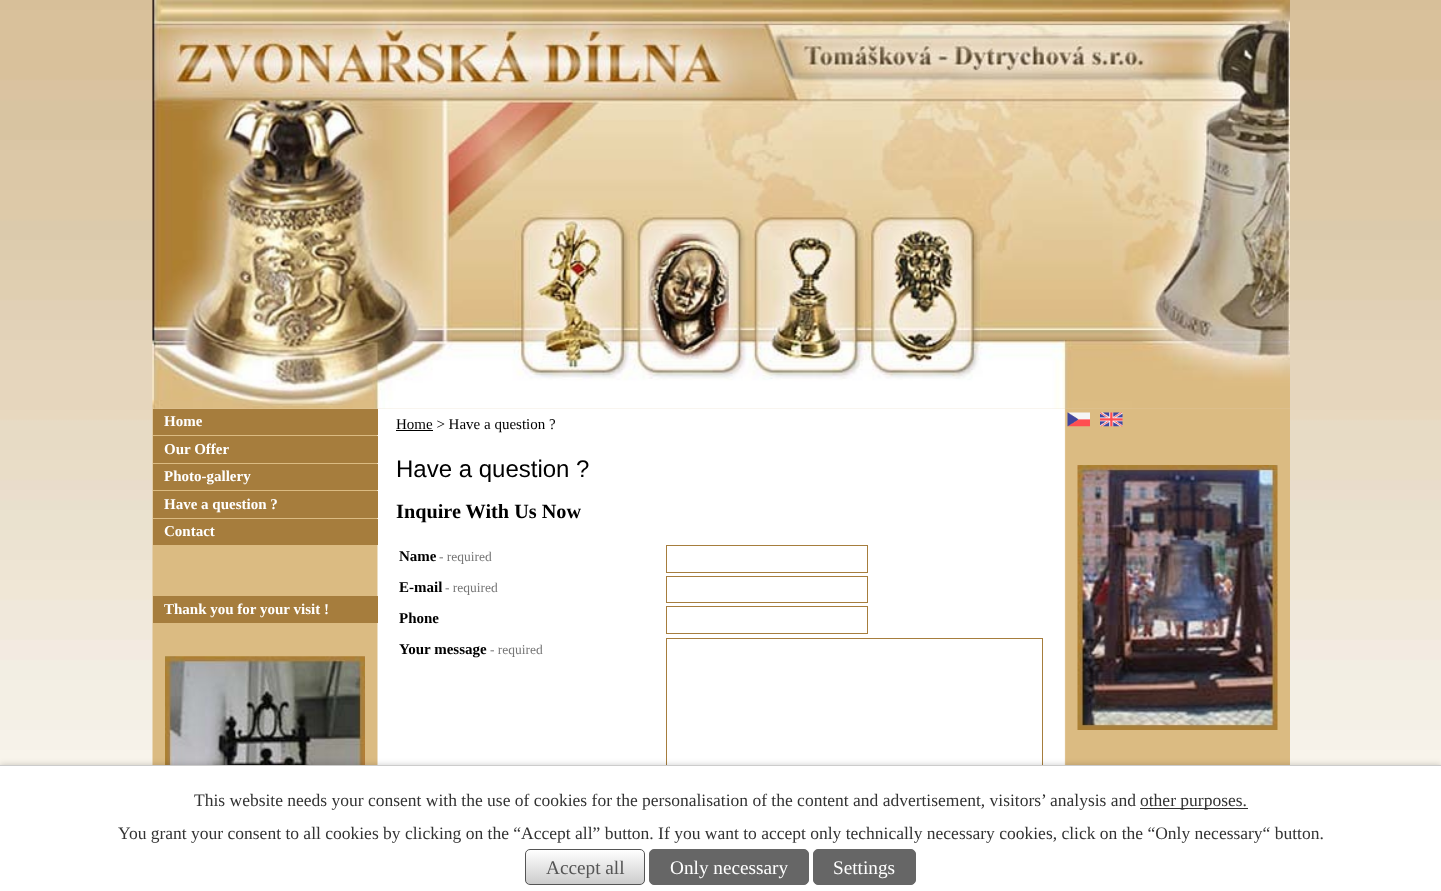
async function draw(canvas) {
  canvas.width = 1441
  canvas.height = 891
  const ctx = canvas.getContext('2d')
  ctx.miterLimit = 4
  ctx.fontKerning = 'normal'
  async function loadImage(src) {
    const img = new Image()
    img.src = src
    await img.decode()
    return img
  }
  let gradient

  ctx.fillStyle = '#fff'
  ctx.fillRect(0, 0, 1441, 891)
  ctx.drawImage(await loadImage('image0.png'), 0, 0, 1441, 765)
  ctx.drawImage(await loadImage('image1.png'), 152, 0, 1138, 409)
  ctx.fillRect(377, 409, 689, 356)
  ctx.drawImage(await loadImage('image2.png'), 152, 408, 1138, 357)
  ctx.fillStyle = '#a67d3d'
  ctx.fillRect(153, 409, 225, 26)
  ctx.font = 'bold 15px Liberation Serif'
  ctx.fillStyle = '#fff'
  ctx.fillText('Home', 164, 426)
  ctx.fillStyle = '#a67d3d'
  ctx.fillRect(153, 436, 225, 27)
  ctx.fillStyle = '#fff'
  ctx.fillText('Our Offer', 164, 454)
  ctx.fillStyle = '#a67d3d'
  ctx.fillRect(153, 464, 225, 26)
  ctx.fillStyle = '#fff'
  ctx.fillText('Photo-gallery', 164, 481)
  ctx.fillStyle = '#a67d3d'
  ctx.fillRect(153, 491, 225, 27)
  ctx.fillStyle = '#fff'
  ctx.fillText('Have a question ?', 164, 509)
  ctx.fillStyle = '#a67d3d'
  ctx.fillRect(153, 519, 225, 26)
  ctx.fillStyle = '#fff'
  ctx.fillText('Contact', 164, 536)
  ctx.fillStyle = '#a67d3d'
  ctx.fillRect(153, 596, 225, 27)
  ctx.fillStyle = '#fff'
  ctx.fillText('Thank you for your visit !', 164, 614)
  ctx.drawImage(await loadImage('image3.png'), 165, 656, 200, 109)
  ctx.fillStyle = '#000'
  ctx.fillRect(396, 430, 37, 1)
  ctx.font = '15px Liberation Serif'
  ctx.fillText('Home > Have a question ?', 396, 429)
  ctx.font = '24px Liberation Sans'
  ctx.fillText('Have a question ?', 396, 477)
  ctx.font = 'bold 20.25px Liberation Serif'
  ctx.fillText('Inquire With Us Now', 396, 518)
  ctx.font = 'bold 15px Liberation Serif'
  ctx.fillText('Name', 399, 561)
  ctx.font = '13.5px Liberation Serif'
  ctx.fillStyle = '#777'
  ctx.fillText('- required', 439, 561)
  ctx.strokeStyle = '#a67d3d'
  ctx.strokeRect(666.5, 545.5, 201, 27)
  ctx.font = 'bold 15px Liberation Serif'
  ctx.fillStyle = '#000'
  ctx.fillText('E-mail', 399, 592)
  ctx.font = '13.5px Liberation Serif'
  ctx.fillStyle = '#777'
  ctx.fillText('- required', 445, 592)
  ctx.strokeRect(666.5, 576.5, 201, 26)
  ctx.font = 'bold 15px Liberation Serif'
  ctx.fillStyle = '#000'
  ctx.fillText('Phone', 399, 623)
  ctx.strokeRect(666.5, 606.5, 201, 27)
  ctx.fillText('Your message', 399, 654)
  ctx.font = '13.5px Liberation Serif'
  ctx.fillStyle = '#777'
  ctx.fillText('- required', 490, 654)
  ctx.strokeRect(666.5, 638.5, 376, 195)
  ctx.drawImage(await loadImage('image4.png'), 1067, 412, 23, 15)
  ctx.drawImage(await loadImage('image5.png'), 1100, 412, 23, 15)
  ctx.drawImage(await loadImage('image6.png'), 1077, 465, 201, 265)
  ctx.fillStyle = '#00000033'
  ctx.filter = 'blur(3px)'
  ctx.beginPath()
  ctx.rect(0, 765, 1441, 126)
  ctx.fill()
  ctx.filter = 'none'
  ctx.fillStyle = '#fff'
  ctx.fillRect(0, 766, 1441, 125)
  ctx.fillStyle = '#ccc'
  ctx.fillRect(0, 765, 1441, 1)
  ctx.font = '17.5px Liberation Serif'
  ctx.fillStyle = '#333'
  ctx.fillText('This website needs your consent with the use of cookies for the personalisation of the content and advertisement, visitors’ analysis and', 194, 806)
  ctx.fillRect(1140, 808, 108, 1)
  ctx.fillText('other purposes.', 1140, 806)
  ctx.fillText('You grant your consent to all cookies by clicking on the “Accept all” button. If you want to accept only technically necessary cookies, click on the “Only necessary“ button.', 118, 839)
  ctx.save()
  ctx.beginPath()
  ctx.roundRect(525, 849, 120, 36, 5)
  ctx.clip()
  gradient = ctx.createLinearGradient(526, 850, 526, 884)
  gradient.addColorStop(0, '#fff')
  gradient.addColorStop(1, '#ccc')
  ctx.fillStyle = gradient
  ctx.fillRect(525, 850, 120, 34)
  ctx.restore()
  ctx.beginPath()
  ctx.roundRect(525.5, 849.5, 119, 35, 4.5)
  ctx.strokeStyle = '#555'
  ctx.stroke()
  ctx.font = '19.25px Liberation Serif'
  ctx.fillStyle = '#555'
  ctx.fillText('Accept all', 546, 874)
  ctx.fillStyle = '#666'
  ctx.beginPath()
  ctx.roundRect(649.5, 849.5, 159, 35, 4.5)
  ctx.fill()
  ctx.strokeStyle = '#666'
  ctx.stroke()
  ctx.fillStyle = '#fff'
  ctx.fillText('Only necessary', 670, 874)
  ctx.fillStyle = '#666'
  ctx.beginPath()
  ctx.roundRect(813.5, 849.5, 102, 35, 4.5)
  ctx.fill()
  ctx.stroke()
  ctx.fillStyle = '#fff'
  ctx.fillText('Settings', 833, 874)
}

draw(document.querySelector('canvas'))
